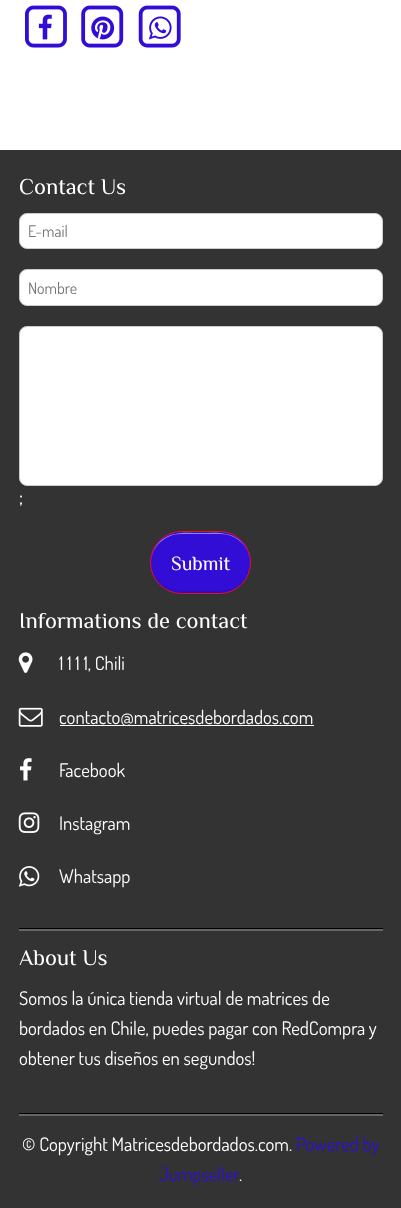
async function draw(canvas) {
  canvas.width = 401
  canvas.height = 1208
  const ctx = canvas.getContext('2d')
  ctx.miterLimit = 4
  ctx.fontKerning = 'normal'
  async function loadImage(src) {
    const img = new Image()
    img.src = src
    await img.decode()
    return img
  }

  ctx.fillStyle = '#fff'
  ctx.fillRect(0, 0, 401, 1208)
  ctx.drawImage(await loadImage('image0.png'), 25, 5, 42, 43)
  ctx.drawImage(await loadImage('image1.png'), 38, 14, 14, 26)
  ctx.drawImage(await loadImage('image2.png'), 81, 5, 43, 43)
  ctx.drawImage(await loadImage('image3.png'), 91, 16, 24, 24)
  ctx.drawImage(await loadImage('image4.png'), 138, 5, 43, 43)
  ctx.drawImage(await loadImage('image5.png'), 148, 16, 24, 24)
  ctx.fillStyle = '#333'
  ctx.fillRect(0, 150, 401, 1058)
  ctx.font = '22.5px Philosopher'
  ctx.fillStyle = '#fff'
  ctx.fillText('Contact Us', 19, 194)
  ctx.beginPath()
  ctx.roundRect(19.5, 213.5, 363, 35, 7.5)
  ctx.fill()
  ctx.strokeStyle = '#ccc'
  ctx.stroke()
  ctx.font = '16px Dosis'
  ctx.fillStyle = '#757575'
  ctx.fillText('E-mail', 28, 237)
  ctx.fillStyle = '#fff'
  ctx.beginPath()
  ctx.roundRect(19.5, 269.5, 363, 36, 7.5)
  ctx.fill()
  ctx.stroke()
  ctx.fillStyle = '#757575'
  ctx.fillText('Nombre', 28, 294)
  ctx.fillStyle = '#fff'
  ctx.beginPath()
  ctx.roundRect(19.5, 326.5, 363, 159, 7.5)
  ctx.fill()
  ctx.stroke()
  ctx.font = '20px Dosis'
  ctx.fillText(';', 19, 504)
  ctx.fillStyle = '#320dd6'
  ctx.beginPath()
  ctx.roundRect(150, 531, 101, 63, 31.5)
  ctx.fill()
  ctx.fillStyle = '#2d0cc1'
  ctx.beginPath()
  ctx.moveTo(151, 562)
  ctx.bezierCurveTo(151, 576, 161, 590, 175, 592)
  ctx.bezierCurveTo(183, 594, 192, 593, 200, 593)
  ctx.bezierCurveTo(209, 593, 218, 594, 226, 592)
  ctx.bezierCurveTo(240, 590, 250, 576, 250, 562)
  ctx.bezierCurveTo(249, 579, 237, 591, 220, 591)
  ctx.lineTo(181, 591)
  ctx.bezierCurveTo(165, 591, 152, 579, 151, 562)
  ctx.closePath()
  ctx.fill()
  ctx.fillStyle = '#9986eb'
  ctx.beginPath()
  ctx.moveTo(181, 534)
  ctx.lineTo(220, 534)
  ctx.bezierCurveTo(237, 534, 250, 547, 250, 563)
  ctx.bezierCurveTo(250, 549, 240, 536, 226, 534)
  ctx.bezierCurveTo(218, 532, 209, 533, 200, 533)
  ctx.bezierCurveTo(192, 533, 183, 532, 175, 534)
  ctx.bezierCurveTo(161, 536, 151, 549, 151, 563)
  ctx.bezierCurveTo(151, 547, 165, 534, 181, 534)
  ctx.closePath()
  ctx.fill()
  ctx.beginPath()
  ctx.roundRect(150.5, 531.5, 100, 62, 31)
  ctx.strokeStyle = '#ed1111'
  ctx.stroke()
  ctx.font = '20px Philosopher'
  ctx.fillStyle = '#fff'
  ctx.fillText('Submit', 171, 570)
  ctx.font = '22.5px Philosopher'
  ctx.fillText('Informations de contact', 19, 628)
  ctx.drawImage(await loadImage('image6.png'), 18, 652, 15, 21)
  ctx.font = '18.75px Dosis'
  ctx.fillText('1 1 1 1, Chili', 59, 670)
  ctx.drawImage(await loadImage('image7.png'), 18, 707, 25, 20)
  ctx.fillRect(60, 725, 254, 1)
  ctx.fillText('contacto@matricesdebordados.com', 59, 724)
  ctx.drawImage(await loadImage('image8.png'), 20, 758, 12, 23)
  ctx.fillText('Facebook', 59, 777)
  ctx.drawImage(await loadImage('image9.png'), 18, 812, 22, 21)
  ctx.fillText('Instagram', 59, 830)
  ctx.drawImage(await loadImage('image10.png'), 18, 866, 22, 21)
  ctx.fillText('Whatsapp', 59, 883)
  ctx.fillStyle = '#666'
  ctx.fillRect(19, 929, 364, 2)
  ctx.fillStyle = '#000'
  ctx.fillRect(19, 928, 364, 1)
  ctx.font = '22.5px Philosopher'
  ctx.fillStyle = '#fff'
  ctx.fillText('About Us', 19, 965)
  ctx.font = '18.75px Dosis'
  ctx.fillText('Somos la única tienda virtual de matrices de', 19, 1005)
  ctx.fillText('bordados en Chile, puedes pagar con RedCompra y', 19, 1035)
  ctx.fillText('obtener tus diseños en segundos!', 19, 1065)
  ctx.fillStyle = '#666'
  ctx.fillRect(19, 1114, 364, 2)
  ctx.fillStyle = '#000'
  ctx.fillRect(19, 1113, 364, 1)
  ctx.fillStyle = '#fff'
  ctx.fillText('© Copyright Matricesdebordados.com.', 22, 1151)
  ctx.fillStyle = '#320dd6'
  ctx.fillText('Powered by', 296, 1151)
  ctx.fillText('Jumpseller', 159, 1181)
  ctx.fillStyle = '#fff'
  ctx.fillText('.', 239, 1181)
}

draw(document.querySelector('canvas'))
